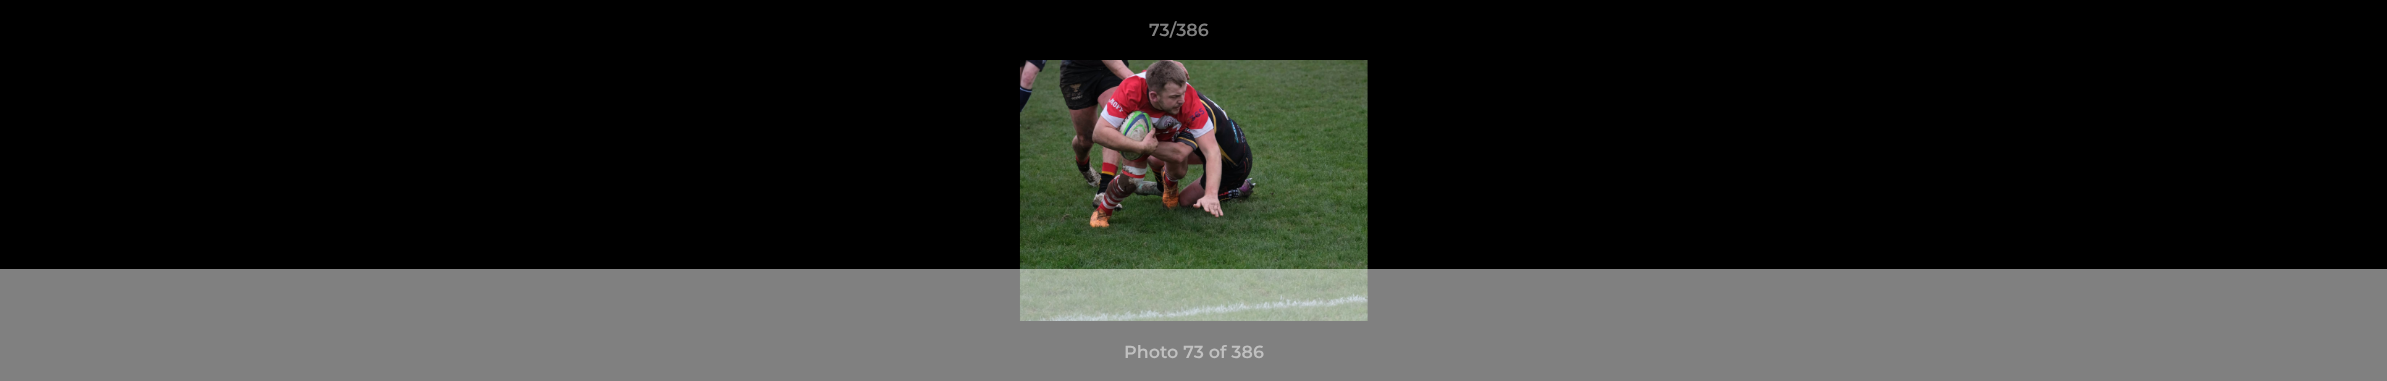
async function draw(canvas) {
  canvas.width = 2387
  canvas.height = 381
  const ctx = canvas.getContext('2d')
  ctx.miterLimit = 4
  ctx.fontKerning = 'normal'
  async function loadImage(src) {
    const img = new Image()
    img.src = src
    await img.decode()
    return img
  }

  ctx.fillStyle = '#000'
  ctx.fillRect(0, 0, 2387, 381)
  ctx.font = '600 17.5px Montserrat'
  ctx.fillStyle = '#808080'
  ctx.fillText('73/386', 1149, 36)
  ctx.drawImage(await loadImage('image0.png'), 1019, 60, 349, 261)
  ctx.fillText('Photo 73 of 386', 1124, 358)
  ctx.fillStyle = '#ffffff80'
  ctx.fillRect(0, 269, 2387, 112)
}

draw(document.querySelector('canvas'))
